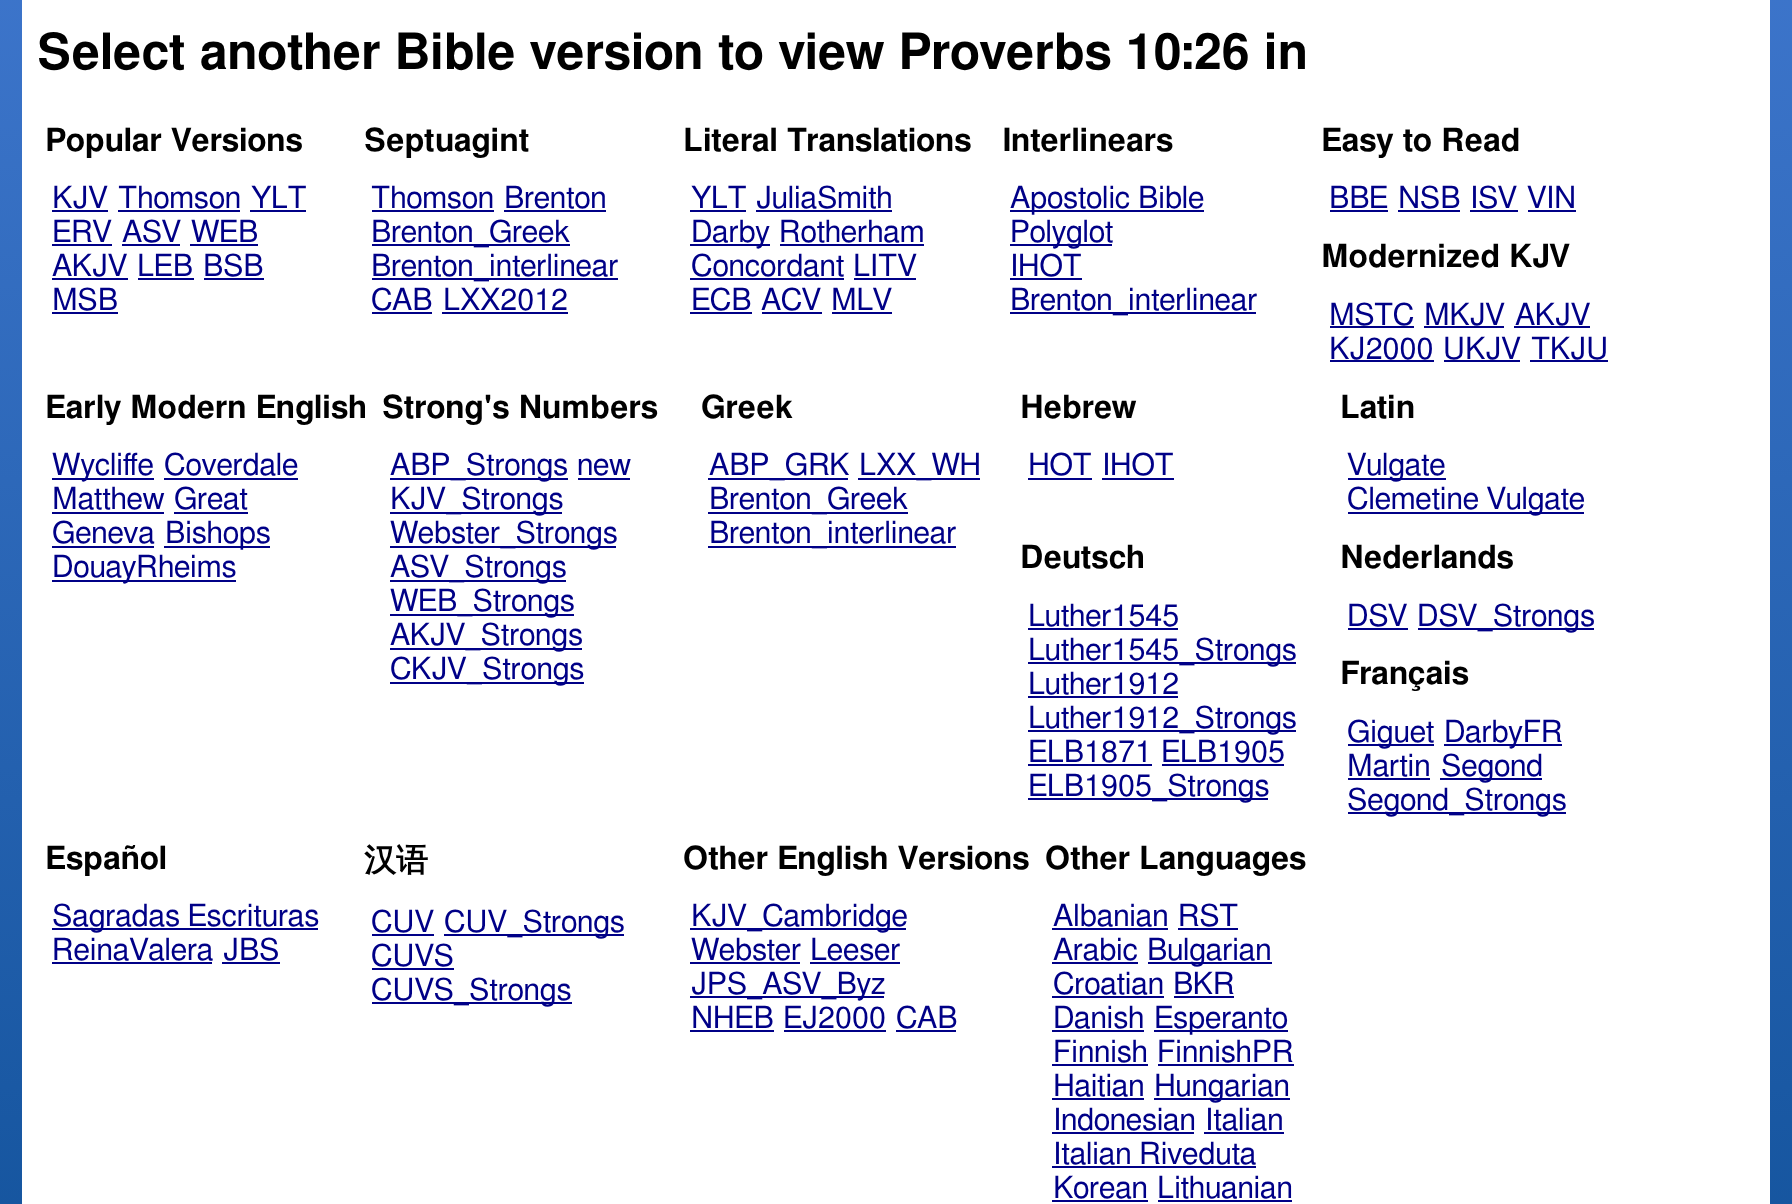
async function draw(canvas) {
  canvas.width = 1792
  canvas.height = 1204
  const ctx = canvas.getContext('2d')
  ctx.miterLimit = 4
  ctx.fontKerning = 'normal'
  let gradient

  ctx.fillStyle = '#fff'
  ctx.fillRect(0, 0, 1792, 1204)
  gradient = ctx.createLinearGradient(896, -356, 896, 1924)
  gradient.addColorStop(0, '#477dd6')
  gradient.addColorStop(1, '#004487')
  ctx.fillStyle = gradient
  ctx.fillRect(0, 0, 1792, 1204)
  ctx.fillStyle = '#fff'
  ctx.fillRect(22, 0, 1748, 1204)
  ctx.font = '600 50px FreeSans'
  ctx.fillStyle = '#000'
  ctx.fillText('Select another Bible version to view Proverbs 10:26 in', 37, 69)
  ctx.font = '600 32px FreeSans'
  ctx.fillText('Popular Versions', 45, 151)
  ctx.font = '30.5px FreeSans'
  ctx.fillStyle = '#000087'
  ctx.fillText('KJV', 52, 208)
  ctx.fillRect(52, 210, 56, 2)
  ctx.fillText('Thomson', 118, 208)
  ctx.fillRect(118, 210, 122, 2)
  ctx.fillText('YLT', 251, 208)
  ctx.fillRect(250, 210, 56, 2)
  ctx.fillText('ERV', 52, 242)
  ctx.fillRect(52, 244, 60, 2)
  ctx.fillText('ASV', 122, 242)
  ctx.fillRect(122, 244, 58, 2)
  ctx.fillText('WEB', 191, 242)
  ctx.fillRect(190, 244, 68, 2)
  ctx.fillText('AKJV', 52, 276)
  ctx.fillRect(52, 278, 76, 2)
  ctx.fillText('LEB', 137, 276)
  ctx.fillRect(138, 278, 56, 2)
  ctx.fillText('BSB', 203, 276)
  ctx.fillRect(204, 278, 60, 2)
  ctx.fillText('MSB', 52, 310)
  ctx.fillRect(52, 312, 66, 2)
  ctx.font = '600 32px FreeSans'
  ctx.fillStyle = '#000'
  ctx.fillText('Septuagint', 364, 151)
  ctx.font = '30.5px FreeSans'
  ctx.fillStyle = '#000087'
  ctx.fillText('Thomson', 371, 208)
  ctx.fillRect(372, 210, 122, 2)
  ctx.fillText('Brenton', 504, 208)
  ctx.fillRect(504, 210, 102, 2)
  ctx.fillRect(372, 244, 198, 2)
  ctx.fillText('Brenton_Greek', 371, 242)
  ctx.fillRect(372, 278, 246, 2)
  ctx.fillText('Brenton_interlinear', 371, 276)
  ctx.fillText('CAB', 371, 310)
  ctx.fillRect(372, 312, 60, 2)
  ctx.fillText('LXX2012', 443, 310)
  ctx.fillRect(442, 312, 126, 2)
  ctx.font = '600 32px FreeSans'
  ctx.fillStyle = '#000'
  ctx.fillText('Literal Translations', 683, 151)
  ctx.font = '30.5px FreeSans'
  ctx.fillStyle = '#000087'
  ctx.fillText('YLT', 691, 208)
  ctx.fillRect(690, 210, 56, 2)
  ctx.fillText('JuliaSmith', 756, 208)
  ctx.fillRect(756, 210, 136, 2)
  ctx.fillRect(690, 244, 80, 2)
  ctx.fillText('Darby', 691, 242)
  ctx.fillText('Rotherham', 779, 242)
  ctx.fillRect(780, 244, 144, 2)
  ctx.fillText('Concordant', 691, 276)
  ctx.fillRect(690, 278, 154, 2)
  ctx.fillText('LITV', 853, 276)
  ctx.fillRect(854, 278, 62, 2)
  ctx.fillText('ECB', 691, 310)
  ctx.fillRect(690, 312, 62, 2)
  ctx.fillText('ACV', 761, 310)
  ctx.fillRect(762, 312, 60, 2)
  ctx.fillText('MLV', 831, 310)
  ctx.fillRect(832, 312, 60, 2)
  ctx.font = '600 32px FreeSans'
  ctx.fillStyle = '#000'
  ctx.fillText('Interlinears', 1002, 151)
  ctx.fillStyle = '#000087'
  ctx.fillRect(1010, 210, 194, 2)
  ctx.font = '30.5px FreeSans'
  ctx.fillText('Apostolic Bible', 1010, 208)
  ctx.fillRect(1010, 244, 102, 2)
  ctx.fillText('Polyglot', 1010, 242)
  ctx.fillText('IHOT', 1010, 276)
  ctx.fillRect(1010, 278, 72, 2)
  ctx.fillRect(1010, 312, 246, 2)
  ctx.fillText('Brenton_interlinear', 1010, 310)
  ctx.font = '600 32px FreeSans'
  ctx.fillStyle = '#000'
  ctx.fillText('Easy to Read', 1321, 151)
  ctx.font = '30.5px FreeSans'
  ctx.fillStyle = '#000087'
  ctx.fillText('BBE', 1329, 208)
  ctx.fillRect(1330, 210, 58, 2)
  ctx.fillText('NSB', 1398, 208)
  ctx.fillRect(1398, 210, 62, 2)
  ctx.fillText('ISV', 1470, 208)
  ctx.fillRect(1470, 210, 48, 2)
  ctx.fillText('VIN', 1527, 208)
  ctx.fillRect(1528, 210, 48, 2)
  ctx.font = '600 32px FreeSans'
  ctx.fillStyle = '#000'
  ctx.fillText('Modernized KJV', 1321, 267)
  ctx.font = '30.5px FreeSans'
  ctx.fillStyle = '#000087'
  ctx.fillText('MSTC', 1329, 325)
  ctx.fillRect(1330, 326, 84, 2)
  ctx.fillText('MKJV', 1424, 325)
  ctx.fillRect(1424, 326, 80, 2)
  ctx.fillText('AKJV', 1515, 325)
  ctx.fillRect(1514, 326, 76, 2)
  ctx.fillText('KJ2000', 1329, 359)
  ctx.fillRect(1330, 360, 104, 2)
  ctx.fillText('UKJV', 1443, 359)
  ctx.fillRect(1444, 360, 76, 2)
  ctx.fillText('TKJU', 1531, 359)
  ctx.fillRect(1530, 360, 78, 2)
  ctx.font = '600 32px FreeSans'
  ctx.fillStyle = '#000'
  ctx.fillText('Early Modern English', 45, 418)
  ctx.fillStyle = '#000087'
  ctx.fillRect(52, 478, 102, 2)
  ctx.font = '30.5px FreeSans'
  ctx.fillText('Wycliffe', 52, 475)
  ctx.fillText('Coverdale', 164, 475)
  ctx.fillRect(164, 478, 134, 2)
  ctx.fillText('Matthew', 52, 509)
  ctx.fillRect(52, 512, 112, 2)
  ctx.fillText('Great', 174, 509)
  ctx.fillRect(174, 512, 74, 2)
  ctx.fillText('Geneva', 52, 543)
  ctx.fillRect(52, 546, 102, 2)
  ctx.fillRect(164, 546, 106, 2)
  ctx.fillText('Bishops', 165, 543)
  ctx.fillRect(52, 580, 184, 2)
  ctx.fillText('DouayRheims', 52, 577)
  ctx.font = '600 32px FreeSans'
  ctx.fillStyle = '#000'
  ctx.fillText('Strong\'s Numbers', 382, 418)
  ctx.fillStyle = '#000087'
  ctx.fillRect(390, 478, 178, 2)
  ctx.font = '30.5px FreeSans'
  ctx.fillText('ABP_Strongs', 390, 475)
  ctx.fillText('new', 577, 475)
  ctx.fillRect(578, 478, 52, 2)
  ctx.fillRect(390, 512, 172, 2)
  ctx.fillText('KJV_Strongs', 390, 509)
  ctx.fillRect(390, 546, 226, 2)
  ctx.fillText('Webster_Strongs', 390, 543)
  ctx.fillRect(390, 580, 176, 2)
  ctx.fillText('ASV_Strongs', 390, 577)
  ctx.fillRect(390, 614, 184, 2)
  ctx.fillText('WEB_Strongs', 390, 611)
  ctx.fillRect(390, 648, 192, 2)
  ctx.fillText('AKJV_Strongs', 390, 645)
  ctx.fillRect(390, 682, 194, 2)
  ctx.fillText('CKJV_Strongs', 390, 679)
  ctx.font = '600 32px FreeSans'
  ctx.fillStyle = '#000'
  ctx.fillText('Greek', 701, 418)
  ctx.fillStyle = '#000087'
  ctx.fillRect(708, 478, 140, 2)
  ctx.font = '30.5px FreeSans'
  ctx.fillText('ABP_GRK', 709, 475)
  ctx.fillRect(858, 478, 122, 2)
  ctx.fillText('LXX_WH', 859, 475)
  ctx.fillRect(708, 512, 200, 2)
  ctx.fillText('Brenton_Greek', 709, 509)
  ctx.fillRect(708, 546, 248, 2)
  ctx.fillText('Brenton_interlinear', 709, 543)
  ctx.font = '600 32px FreeSans'
  ctx.fillStyle = '#000'
  ctx.fillText('Hebrew', 1020, 418)
  ctx.font = '30.5px FreeSans'
  ctx.fillStyle = '#000087'
  ctx.fillText('HOT', 1028, 475)
  ctx.fillRect(1028, 478, 64, 2)
  ctx.fillText('IHOT', 1102, 475)
  ctx.fillRect(1102, 478, 72, 2)
  ctx.font = '600 32px FreeSans'
  ctx.fillStyle = '#000'
  ctx.fillText('Latin', 1340, 418)
  ctx.fillStyle = '#000087'
  ctx.fillRect(1348, 478, 98, 2)
  ctx.font = '30.5px FreeSans'
  ctx.fillText('Vulgate', 1347, 475)
  ctx.fillRect(1348, 512, 236, 2)
  ctx.fillText('Clemetine Vulgate', 1347, 509)
  ctx.font = '600 32px FreeSans'
  ctx.fillStyle = '#000'
  ctx.fillText('Deutsch', 1020, 568)
  ctx.font = '30.5px FreeSans'
  ctx.fillStyle = '#000087'
  ctx.fillText('Luther1545', 1028, 626)
  ctx.fillRect(1028, 628, 150, 2)
  ctx.fillRect(1028, 662, 268, 2)
  ctx.fillText('Luther1545_Strongs', 1028, 660)
  ctx.fillText('Luther1912', 1028, 694)
  ctx.fillRect(1028, 696, 150, 2)
  ctx.fillRect(1028, 730, 268, 2)
  ctx.fillText('Luther1912_Strongs', 1028, 728)
  ctx.fillText('ELB1871', 1028, 762)
  ctx.fillRect(1028, 764, 124, 2)
  ctx.fillText('ELB1905', 1161, 762)
  ctx.fillRect(1162, 764, 122, 2)
  ctx.fillRect(1028, 798, 240, 2)
  ctx.fillText('ELB1905_Strongs', 1028, 796)
  ctx.font = '600 32px FreeSans'
  ctx.fillStyle = '#000'
  ctx.fillText('Nederlands', 1340, 568)
  ctx.font = '30.5px FreeSans'
  ctx.fillStyle = '#000087'
  ctx.fillText('DSV', 1347, 626)
  ctx.fillRect(1348, 628, 60, 2)
  ctx.fillRect(1418, 628, 176, 2)
  ctx.fillText('DSV_Strongs', 1417, 626)
  ctx.font = '600 32px FreeSans'
  ctx.fillStyle = '#000'
  ctx.fillText('Français', 1340, 684)
  ctx.fillStyle = '#000087'
  ctx.fillRect(1348, 744, 86, 2)
  ctx.font = '30.5px FreeSans'
  ctx.fillText('Giguet', 1347, 742)
  ctx.fillRect(1444, 744, 118, 2)
  ctx.fillText('DarbyFR', 1444, 742)
  ctx.fillText('Martin', 1347, 776)
  ctx.fillRect(1348, 778, 82, 2)
  ctx.fillRect(1440, 778, 102, 2)
  ctx.fillText('Segond', 1441, 776)
  ctx.fillRect(1348, 812, 218, 2)
  ctx.fillText('Segond_Strongs', 1347, 810)
  ctx.font = '600 32px FreeSans'
  ctx.fillStyle = '#000'
  ctx.fillText('Español', 45, 869)
  ctx.fillStyle = '#000087'
  ctx.fillRect(52, 928, 266, 2)
  ctx.font = '30.5px FreeSans'
  ctx.fillText('Sagradas Escrituras', 52, 926)
  ctx.fillText('ReinaValera', 52, 960)
  ctx.fillRect(52, 962, 160, 2)
  ctx.fillText('JBS', 223, 960)
  ctx.fillRect(222, 962, 58, 2)
  ctx.font = 'bold 32px WenQuanYi Zen Hei'
  ctx.fillStyle = '#000'
  ctx.fillText('汉语', 364, 871)
  ctx.font = '30.5px FreeSans'
  ctx.fillStyle = '#000087'
  ctx.fillText('CUV', 371, 932)
  ctx.fillRect(372, 934, 62, 2)
  ctx.fillRect(444, 934, 180, 2)
  ctx.fillText('CUV_Strongs', 444, 932)
  ctx.fillText('CUVS', 371, 966)
  ctx.fillRect(372, 968, 82, 2)
  ctx.fillRect(372, 1002, 200, 2)
  ctx.fillText('CUVS_Strongs', 371, 1000)
  ctx.font = '600 32px FreeSans'
  ctx.fillStyle = '#000'
  ctx.fillText('Other English Versions', 683, 869)
  ctx.fillStyle = '#000087'
  ctx.fillRect(690, 928, 216, 2)
  ctx.font = '30.5px FreeSans'
  ctx.fillText('KJV_Cambridge', 691, 926)
  ctx.fillText('Webster', 691, 960)
  ctx.fillRect(690, 962, 110, 2)
  ctx.fillText('Leeser', 810, 960)
  ctx.fillRect(810, 962, 90, 2)
  ctx.fillRect(690, 996, 194, 2)
  ctx.fillText('JPS_ASV_Byz', 691, 994)
  ctx.fillText('NHEB', 691, 1028)
  ctx.fillRect(690, 1030, 84, 2)
  ctx.fillText('EJ2000', 783, 1028)
  ctx.fillRect(784, 1030, 102, 2)
  ctx.fillText('CAB', 896, 1028)
  ctx.fillRect(896, 1030, 60, 2)
  ctx.font = '600 32px FreeSans'
  ctx.fillStyle = '#000'
  ctx.fillText('Other Languages', 1045, 869)
  ctx.font = '30.5px FreeSans'
  ctx.fillStyle = '#000087'
  ctx.fillText('Albanian', 1053, 926)
  ctx.fillRect(1052, 928, 116, 2)
  ctx.fillText('RST', 1178, 926)
  ctx.fillRect(1178, 928, 60, 2)
  ctx.fillText('Arabic', 1053, 960)
  ctx.fillRect(1052, 962, 86, 2)
  ctx.fillRect(1148, 962, 124, 2)
  ctx.fillText('Bulgarian', 1147, 960)
  ctx.fillText('Croatian', 1053, 994)
  ctx.fillRect(1052, 996, 112, 2)
  ctx.fillText('BKR', 1173, 994)
  ctx.fillRect(1174, 996, 60, 2)
  ctx.fillText('Danish', 1053, 1028)
  ctx.fillRect(1052, 1030, 92, 2)
  ctx.fillRect(1154, 1030, 134, 2)
  ctx.fillText('Esperanto', 1154, 1028)
  ctx.fillText('Finnish', 1053, 1062)
  ctx.fillRect(1052, 1064, 96, 2)
  ctx.fillText('FinnishPR', 1157, 1062)
  ctx.fillRect(1158, 1064, 136, 2)
  ctx.fillText('Haitian', 1053, 1096)
  ctx.fillRect(1052, 1098, 92, 2)
  ctx.fillRect(1154, 1098, 136, 2)
  ctx.fillText('Hungarian', 1154, 1096)
  ctx.fillText('Indonesian', 1053, 1130)
  ctx.fillRect(1052, 1132, 142, 2)
  ctx.fillText('Italian', 1205, 1130)
  ctx.fillRect(1204, 1132, 80, 2)
  ctx.fillText('Italian Riveduta', 1053, 1164)
  ctx.fillRect(1052, 1166, 204, 2)
  ctx.fillText('Korean', 1053, 1198)
  ctx.fillRect(1052, 1200, 96, 2)
  ctx.fillText('Lithuanian', 1157, 1198)
  ctx.fillRect(1158, 1200, 134, 2)
}

draw(document.querySelector('canvas'))
